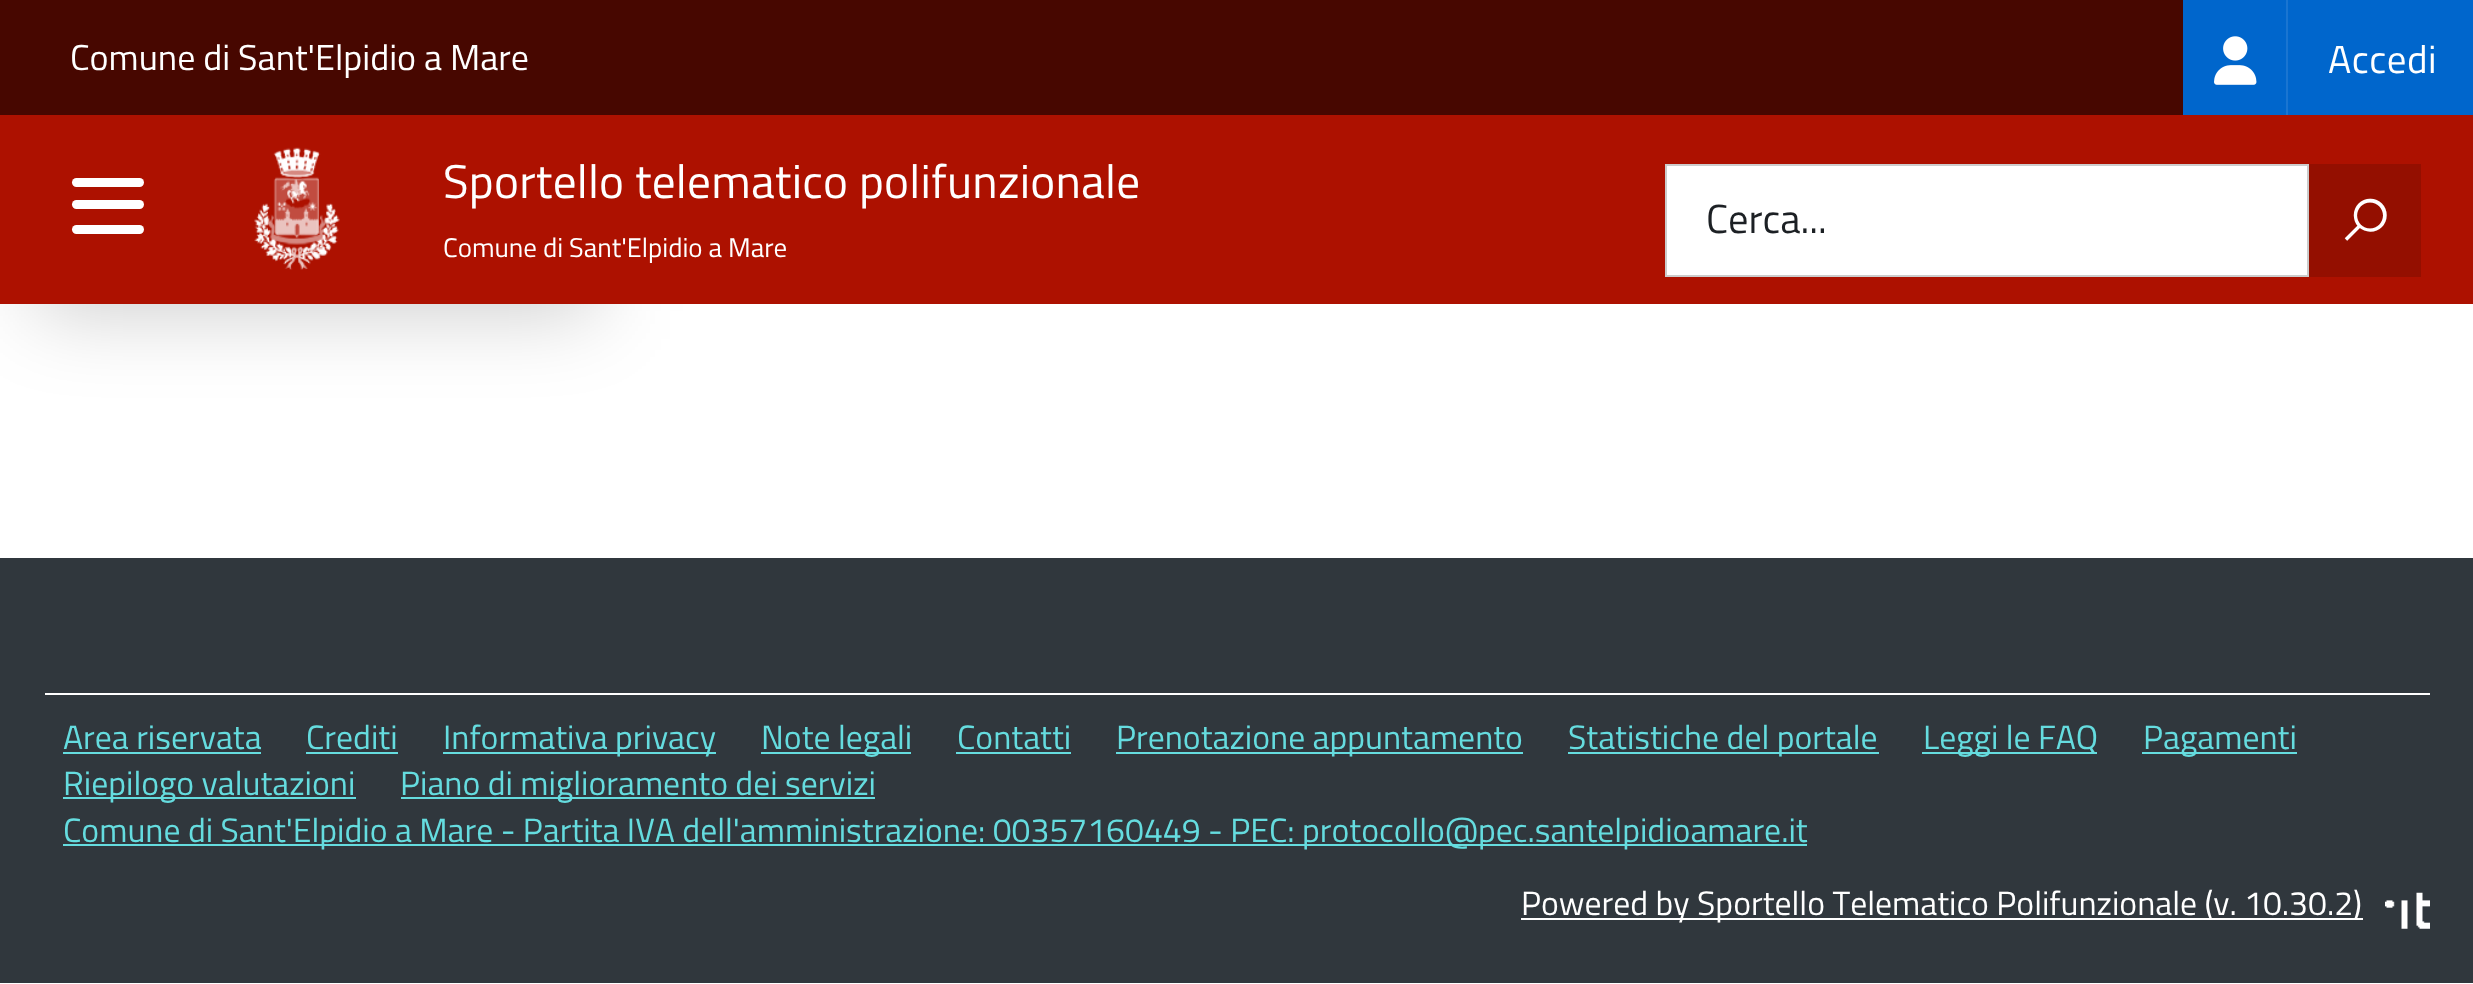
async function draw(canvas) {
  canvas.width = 2473
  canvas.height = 984
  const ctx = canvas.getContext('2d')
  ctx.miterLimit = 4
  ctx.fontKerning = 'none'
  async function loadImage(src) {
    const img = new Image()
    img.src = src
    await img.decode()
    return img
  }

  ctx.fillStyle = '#fff'
  ctx.fillRect(0, 0, 2473, 984)
  ctx.fillStyle = '#00000033'
  ctx.filter = 'blur(41.5px)'
  ctx.beginPath()
  ctx.rect(36, -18, 560, 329)
  ctx.fill()
  ctx.filter = 'none'
  ctx.fillStyle = '#470700'
  ctx.fillRect(0, 0, 2183, 115)
  ctx.font = '36px Titillium Web'
  ctx.fillStyle = '#fff'
  ctx.fillText('Comune di Sant\'Elpidio a Mare', 70, 70)
  ctx.fillStyle = '#06c'
  ctx.fillRect(2183, 0, 103, 115)
  ctx.fillStyle = '#1a75d1'
  ctx.fillRect(2286, 0, 2, 115)
  ctx.drawImage(await loadImage('image0.png'), 2214, 36, 43, 49)
  ctx.fillStyle = '#06c'
  ctx.fillRect(2288, 0, 185, 115)
  ctx.letterSpacing = '0.5px'
  ctx.font = '39px Titillium Web'
  ctx.fillStyle = '#fff'
  ctx.fillText('Accedi', 2328, 73)
  ctx.fillStyle = '#ad1100'
  ctx.fillRect(0, 115, 2473, 189)
  ctx.fillStyle = '#fff'
  ctx.beginPath()
  ctx.roundRect(72, 200, 72, 9, 4.5)
  ctx.fill()
  ctx.beginPath()
  ctx.roundRect(72, 178, 72, 9, 4.5)
  ctx.fill()
  ctx.beginPath()
  ctx.roundRect(72, 225, 72, 9, 4.5)
  ctx.fill()
  ctx.drawImage(await loadImage('image1.png'), 254, 147, 86, 123)
  ctx.letterSpacing = '0.25px'
  ctx.font = '47.25px Titillium Web'
  ctx.fillText('Sportello telematico polifunzionale', 443, 198)
  ctx.letterSpacing = '0px'
  ctx.font = '27px Titillium Web'
  ctx.fillText('Comune di Sant\'Elpidio a Mare', 443, 257)
  ctx.beginPath()
  ctx.rect(1666, 165, 642, 111)
  ctx.fill()
  ctx.strokeStyle = '#ccc'
  ctx.lineWidth = 2
  ctx.stroke()
  ctx.fillStyle = '#940f00'
  ctx.fillRect(2309, 164, 112, 113)
  ctx.font = 'bold 40.5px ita'
  ctx.fillStyle = '#fff'
  ctx.fillText('🔍', 2345, 238)
  ctx.font = '40.5px Titillium Web'
  ctx.fillStyle = '#1c2024'
  ctx.fillText('Cerca...', 1706, 233)
  ctx.fillStyle = '#30373d'
  ctx.fillRect(0, 558, 2473, 425)
  ctx.fillStyle = '#fff'
  ctx.fillRect(45, 693, 2385, 2)
  ctx.font = '33.75px Titillium Web'
  ctx.fillStyle = '#65dcdf'
  ctx.fillText('Area riservata', 63, 749)
  ctx.fillRect(63, 752, 198, 2)
  ctx.fillText('Crediti', 306, 749)
  ctx.fillRect(306, 752, 92, 2)
  ctx.fillRect(443, 752, 273, 2)
  ctx.fillText('Informativa privacy', 443, 749)
  ctx.fillRect(761, 752, 150, 2)
  ctx.fillText('Note legali', 761, 749)
  ctx.fillText('Contatti', 957, 749)
  ctx.fillRect(956, 752, 115, 2)
  ctx.fillRect(1116, 752, 407, 2)
  ctx.fillText('Prenotazione appuntamento', 1116, 749)
  ctx.fillRect(1568, 752, 311, 2)
  ctx.fillText('Statistiche del portale', 1568, 749)
  ctx.fillRect(1922, 752, 175, 2)
  ctx.fillText('Leggi le FAQ', 1923, 749)
  ctx.fillRect(2142, 752, 155, 2)
  ctx.fillText('Pagamenti', 2143, 749)
  ctx.fillRect(63, 797, 293, 2)
  ctx.fillText('Riepilogo valutazioni', 63, 795)
  ctx.fillRect(401, 797, 474, 2)
  ctx.fillText('Piano di miglioramento dei servizi', 400, 795)
  ctx.fillRect(63, 844, 1744, 2)
  ctx.fillText('Comune di Sant\'Elpidio a Mare - Partita IVA dell\'amministrazione: 00357160449 - PEC: protocollo@pec.santelpidioamare.it', 63, 842)
  ctx.fillStyle = '#fff'
  ctx.fillRect(1521, 918, 842, 2)
  ctx.fillText('Powered by Sportello Telematico Polifunzionale (v.', 1521, 915)
  ctx.fillText('10.30.2)', 2244, 915)
  ctx.drawImage(await loadImage('image2.png'), 2385, 892, 45, 37)
}

draw(document.querySelector('canvas'))
